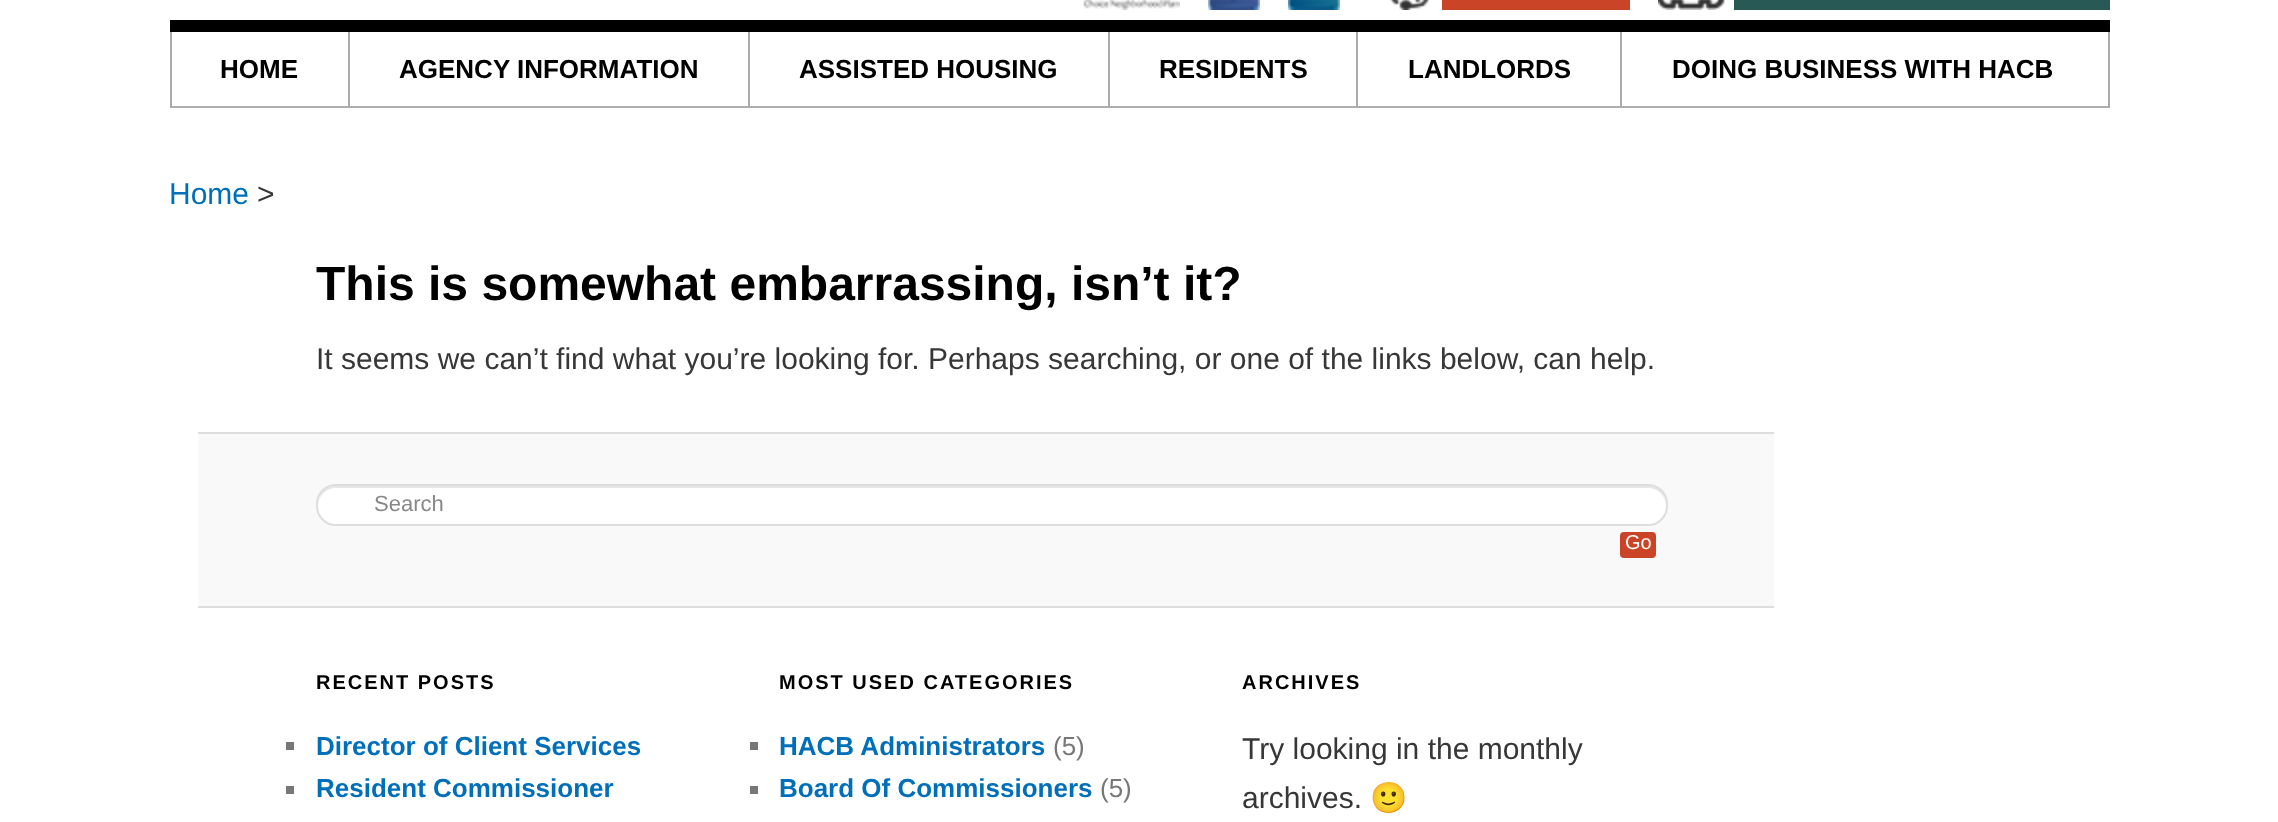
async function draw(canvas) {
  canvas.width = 2278
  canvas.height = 822
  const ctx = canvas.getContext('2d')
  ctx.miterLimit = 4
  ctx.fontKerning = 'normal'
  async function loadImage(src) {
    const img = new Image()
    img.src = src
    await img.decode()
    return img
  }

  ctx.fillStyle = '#fff'
  ctx.fillRect(0, 0, 2278, 822)
  ctx.drawImage(await loadImage('image0.png'), 1083, 0, 97, 10)
  ctx.drawImage(await loadImage('image1.png'), 1208, 0, 52, 10)
  ctx.drawImage(await loadImage('image2.png'), 1288, 0, 52, 10)
  ctx.drawImage(await loadImage('image3.png'), 1389, 0, 41, 10)
  ctx.fillStyle = '#ca4427'
  ctx.fillRect(1442, 0, 188, 10)
  ctx.drawImage(await loadImage('image4.png'), 1658, 0, 67, 10)
  ctx.fillStyle = '#285955'
  ctx.fillRect(1734, 0, 376, 10)
  ctx.fillStyle = '#000'
  ctx.fillRect(170, 20, 1940, 12)
  ctx.fillStyle = '#aeaeae'
  ctx.fillRect(170, 106, 1940, 2)
  ctx.fillStyle = '#ababab'
  ctx.fillRect(2108, 32, 2, 74)
  ctx.fillRect(170, 32, 2, 74)
  ctx.font = 'bold 26px Liberation Sans'
  ctx.fillStyle = '#000'
  ctx.fillText('HOME', 220, 78)
  ctx.fillStyle = '#ababab'
  ctx.fillRect(348, 32, 2, 74)
  ctx.fillStyle = '#000'
  ctx.fillText('AGENCY INFORMATION', 399, 78)
  ctx.fillStyle = '#ababab'
  ctx.fillRect(748, 32, 2, 74)
  ctx.fillStyle = '#000'
  ctx.fillText('ASSISTED HOUSING', 799, 78)
  ctx.fillStyle = '#ababab'
  ctx.fillRect(1108, 32, 2, 74)
  ctx.fillStyle = '#000'
  ctx.fillText('RESIDENTS', 1159, 78)
  ctx.fillStyle = '#ababab'
  ctx.fillRect(1356, 32, 2, 74)
  ctx.fillStyle = '#000'
  ctx.fillText('LANDLORDS', 1408, 78)
  ctx.fillStyle = '#ababab'
  ctx.fillRect(1620, 32, 2, 74)
  ctx.fillStyle = '#000'
  ctx.fillText('DOING BUSINESS WITH HACB', 1672, 78)
  ctx.font = '30px Liberation Sans'
  ctx.fillStyle = '#006fba'
  ctx.fillText('Home', 169, 204)
  ctx.fillStyle = '#373737'
  ctx.fillText('>', 257, 204)
  ctx.font = 'bold 48px Liberation Sans'
  ctx.fillStyle = '#000'
  ctx.fillText('This is somewhat embarrassing, isn’t it?', 316, 300)
  ctx.font = '30px Liberation Sans'
  ctx.fillStyle = '#373737'
  ctx.fillText('It seems we can’t find what you’re looking for. Perhaps searching, or one of the links below, can help.', 316, 369)
  ctx.fillStyle = '#f9f9f9'
  ctx.fillRect(198, 434, 1576, 172)
  ctx.fillStyle = '#ddd'
  ctx.fillRect(198, 432, 1576, 2)
  ctx.fillRect(198, 606, 1576, 2)
  ctx.fillStyle = '#fff'
  ctx.beginPath()
  ctx.roundRect(316, 484, 1352, 42, 20)
  ctx.fill()
  ctx.fillStyle = '#e6e6e6'
  ctx.beginPath()
  ctx.moveTo(336, 488)
  ctx.lineTo(1648, 488)
  ctx.bezierCurveTo(1658, 488, 1666, 496, 1666, 506)
  ctx.bezierCurveTo(1666, 495, 1660, 486, 1648, 486)
  ctx.lineTo(336, 486)
  ctx.bezierCurveTo(324, 486, 318, 495, 318, 506)
  ctx.bezierCurveTo(318, 496, 326, 488, 336, 488)
  ctx.closePath()
  ctx.fill()
  ctx.beginPath()
  ctx.roundRect(317, 485, 1350, 40, 19)
  ctx.strokeStyle = '#ddd'
  ctx.lineWidth = 2
  ctx.stroke()
  ctx.font = '22px Liberation Sans'
  ctx.fillStyle = '#888'
  ctx.fillText('Search', 374, 511)
  ctx.fillStyle = '#ca4427'
  ctx.beginPath()
  ctx.roundRect(1620, 532, 36, 26, 4)
  ctx.fill()
  ctx.font = '20px Liberation Sans'
  ctx.fillStyle = '#fff'
  ctx.fillText('Go', 1625, 549)
  ctx.letterSpacing = '2px'
  ctx.font = 'bold 20px Liberation Sans'
  ctx.fillStyle = '#000'
  ctx.fillText('RECENT POSTS', 316, 689)
  ctx.fillStyle = '#777'
  ctx.fillRect(286, 742, 8, 8)
  ctx.letterSpacing = '0px'
  ctx.font = 'bold 26px Liberation Sans'
  ctx.fillStyle = '#006fba'
  ctx.fillText('Director of Client Services', 316, 755)
  ctx.fillStyle = '#777'
  ctx.fillRect(286, 786, 8, 8)
  ctx.fillStyle = '#006fba'
  ctx.fillText('Resident Commissioner', 316, 797)
  ctx.letterSpacing = '2px'
  ctx.font = 'bold 20px Liberation Sans'
  ctx.fillStyle = '#000'
  ctx.fillText('MOST USED CATEGORIES', 779, 689)
  ctx.fillStyle = '#777'
  ctx.fillRect(750, 742, 8, 8)
  ctx.letterSpacing = '0px'
  ctx.font = 'bold 26px Liberation Sans'
  ctx.fillStyle = '#006fba'
  ctx.fillText('HACB Administrators', 779, 755)
  ctx.font = '26px Liberation Sans'
  ctx.fillStyle = '#777'
  ctx.fillText('(5)', 1053, 755)
  ctx.fillRect(750, 786, 8, 8)
  ctx.font = 'bold 26px Liberation Sans'
  ctx.fillStyle = '#006fba'
  ctx.fillText('Board Of Commissioners', 779, 797)
  ctx.font = '26px Liberation Sans'
  ctx.fillStyle = '#777'
  ctx.fillText('(5)', 1100, 797)
  ctx.letterSpacing = '2px'
  ctx.font = 'bold 20px Liberation Sans'
  ctx.fillStyle = '#000'
  ctx.fillText('ARCHIVES', 1242, 689)
  ctx.letterSpacing = '0px'
  ctx.font = '30px Liberation Sans'
  ctx.fillStyle = '#373737'
  ctx.fillText('Try looking in the monthly', 1242, 759)
  ctx.fillText('archives.', 1242, 808)
  ctx.font = '30px Noto Color Emoji'
  ctx.fillText('🙂', 1370, 808)
}

draw(document.querySelector('canvas'))
